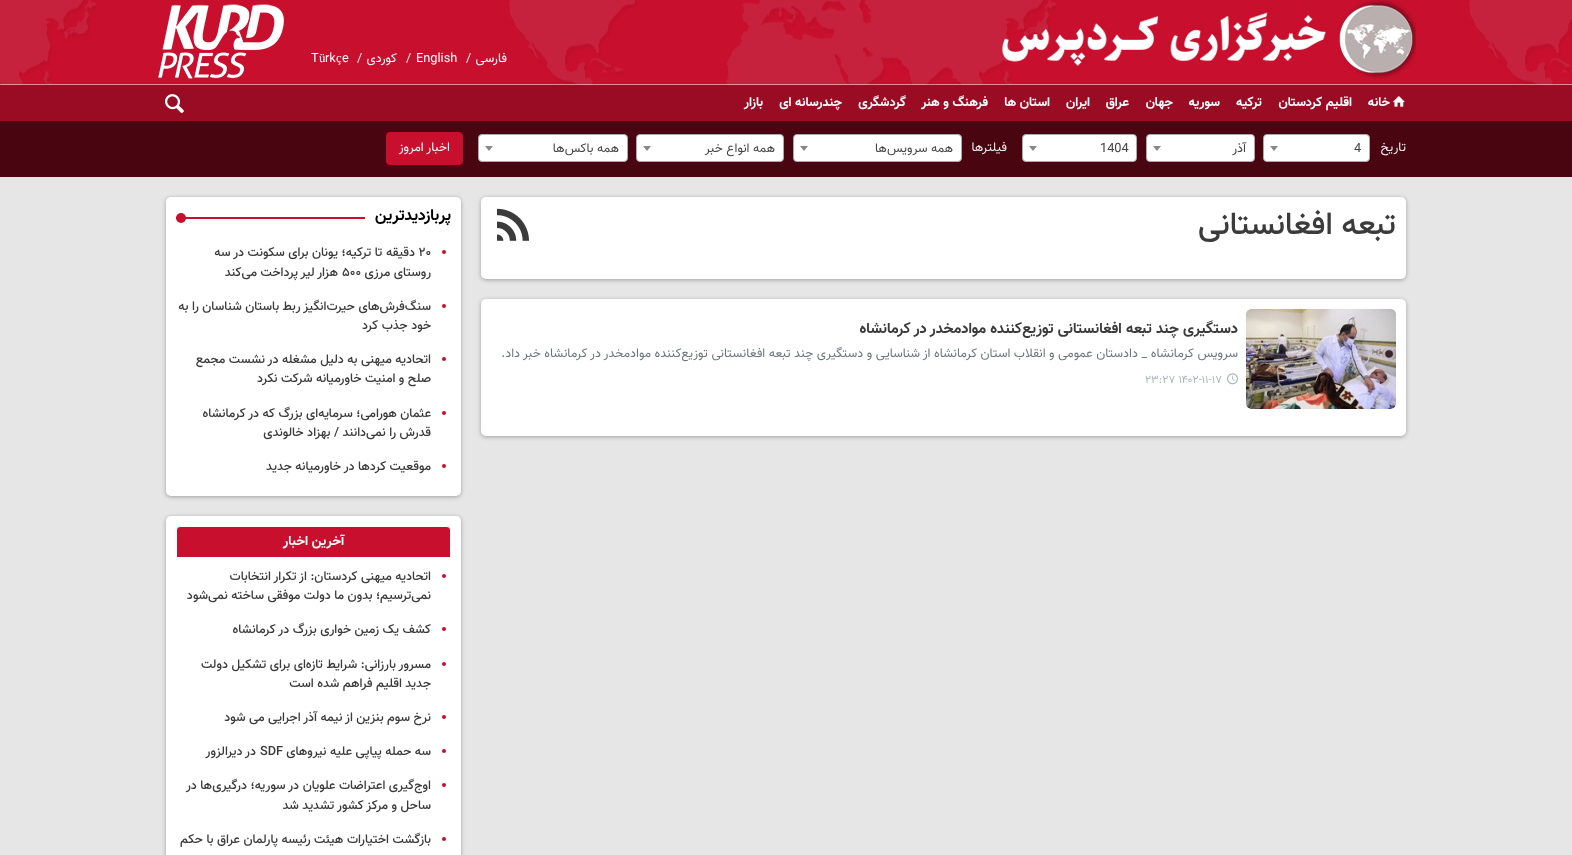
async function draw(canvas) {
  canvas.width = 1572
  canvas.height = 855
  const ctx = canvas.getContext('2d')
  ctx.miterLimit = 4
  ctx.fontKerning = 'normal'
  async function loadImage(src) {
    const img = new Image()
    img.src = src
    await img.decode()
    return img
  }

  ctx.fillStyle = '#e6e6e6'
  ctx.fillRect(0, 0, 1572, 855)
  ctx.fillStyle = '#c8102e'
  ctx.fillRect(0, 0, 1572, 85)
  ctx.drawImage(await loadImage('image0.png'), 0, 0, 1572, 85)
  ctx.drawImage(await loadImage('image1.png'), 1002, 0, 414, 79)
  ctx.direction = 'rtl'
  ctx.font = '12.8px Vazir'
  ctx.fillStyle = '#fff'
  ctx.fillText('فارسی', 507, 62)
  ctx.direction = 'ltr'
  ctx.fillStyle = '#eee'
  ctx.fillText('/', 466, 62)
  ctx.fillStyle = '#fff'
  ctx.fillText('English', 416, 62)
  ctx.fillStyle = '#eee'
  ctx.fillText('/', 406, 62)
  ctx.direction = 'rtl'
  ctx.fillStyle = '#fff'
  ctx.fillText('کوردی', 397, 62)
  ctx.direction = 'ltr'
  ctx.fillStyle = '#eee'
  ctx.fillText('/', 357, 62)
  ctx.fillStyle = '#fff'
  ctx.fillText('e', 342, 62)
  ctx.font = '12.8px Liberation Serif'
  ctx.fillText('ç', 336, 62)
  ctx.font = '12.8px Vazir'
  ctx.fillText('rk', 325, 62)
  ctx.fillText('T', 311, 62)
  ctx.font = '12.8px Liberation Serif'
  ctx.fillText('ü', 319, 62)
  ctx.drawImage(await loadImage('image2.png'), 158, 4, 126, 75)
  ctx.fillStyle = '#990c23'
  ctx.fillRect(0, 85, 1572, 36)
  ctx.fillStyle = '#ffffff80'
  ctx.fillRect(0, 84, 1572, 1)
  ctx.drawImage(await loadImage('image3.png'), 1393, 96, 12, 11)
  ctx.direction = 'rtl'
  ctx.font = 'bold 13px Vazir'
  ctx.fillStyle = '#fff'
  ctx.fillText('خانه', 1390, 106)
  ctx.fillText('اقلیم کردستان', 1352, 106)
  ctx.fillText('ترکیه', 1262, 106)
  ctx.fillText('سوریه', 1220, 106)
  ctx.fillText('جهان', 1173, 106)
  ctx.fillText('عراق', 1129, 106)
  ctx.fillText('ایران', 1090, 106)
  ctx.fillText('استان ها', 1050, 106)
  ctx.fillText('فرهنگ و هنر', 988, 106)
  ctx.fillText('گردشگری', 906, 106)
  ctx.fillText('چندرسانه ای', 842, 106)
  ctx.fillText('بازار', 763, 106)
  ctx.drawImage(await loadImage('image4.png'), 165, 94, 19, 20)
  ctx.fillStyle = '#490611'
  ctx.fillRect(0, 121, 1572, 56)
  ctx.font = '12.8px Vazir'
  ctx.fillStyle = '#eee'
  ctx.fillText('تاریخ', 1406, 151)
  ctx.fillStyle = '#fff'
  ctx.beginPath()
  ctx.roundRect(1263.5, 134.5, 106, 27, 3.5)
  ctx.fill()
  ctx.strokeStyle = '#aaa'
  ctx.stroke()
  ctx.direction = 'ltr'
  ctx.fillStyle = '#444'
  ctx.fillText('4', 1354, 152)
  ctx.fillStyle = '#888'
  ctx.beginPath()
  ctx.moveTo(1270, 146)
  ctx.lineTo(1278, 146)
  ctx.lineTo(1274, 151)
  ctx.closePath()
  ctx.fill()
  ctx.fillStyle = '#fff'
  ctx.beginPath()
  ctx.roundRect(1146.5, 134.5, 108, 27, 3.5)
  ctx.fill()
  ctx.stroke()
  ctx.direction = 'rtl'
  ctx.fillStyle = '#444'
  ctx.fillText('آذر', 1246, 152)
  ctx.fillStyle = '#888'
  ctx.beginPath()
  ctx.moveTo(1153, 146)
  ctx.lineTo(1161, 146)
  ctx.lineTo(1157, 151)
  ctx.closePath()
  ctx.fill()
  ctx.fillStyle = '#fff'
  ctx.beginPath()
  ctx.roundRect(1022.5, 134.5, 114, 27, 3.5)
  ctx.fill()
  ctx.stroke()
  ctx.direction = 'ltr'
  ctx.fillStyle = '#444'
  ctx.fillText('1404', 1100, 152)
  ctx.fillStyle = '#888'
  ctx.beginPath()
  ctx.moveTo(1029, 146)
  ctx.lineTo(1037, 146)
  ctx.lineTo(1033, 151)
  ctx.closePath()
  ctx.fill()
  ctx.direction = 'rtl'
  ctx.fillStyle = '#eee'
  ctx.fillText('فیلترها', 1007, 151)
  ctx.fillStyle = '#fff'
  ctx.beginPath()
  ctx.roundRect(793.5, 134.5, 168, 27, 3.5)
  ctx.fill()
  ctx.stroke()
  ctx.fillStyle = '#444'
  ctx.fillText('همه سرویس‌ها', 953, 152)
  ctx.fillStyle = '#888'
  ctx.beginPath()
  ctx.moveTo(800, 146)
  ctx.lineTo(808, 146)
  ctx.lineTo(804, 151)
  ctx.closePath()
  ctx.fill()
  ctx.fillStyle = '#fff'
  ctx.beginPath()
  ctx.roundRect(636.5, 134.5, 147, 27, 3.5)
  ctx.fill()
  ctx.stroke()
  ctx.fillStyle = '#444'
  ctx.fillText('همه انواع خبر', 775, 152)
  ctx.fillStyle = '#888'
  ctx.beginPath()
  ctx.moveTo(643, 146)
  ctx.lineTo(651, 146)
  ctx.lineTo(647, 151)
  ctx.closePath()
  ctx.fill()
  ctx.fillStyle = '#fff'
  ctx.beginPath()
  ctx.roundRect(478.5, 134.5, 149, 27, 3.5)
  ctx.fill()
  ctx.stroke()
  ctx.fillStyle = '#444'
  ctx.fillText('همه باکس‌ها', 619, 152)
  ctx.fillStyle = '#888'
  ctx.beginPath()
  ctx.moveTo(485, 146)
  ctx.lineTo(493, 146)
  ctx.lineTo(489, 151)
  ctx.closePath()
  ctx.fill()
  ctx.fillStyle = '#c8102e'
  ctx.beginPath()
  ctx.roundRect(386.5, 132.5, 76, 32, 3.5)
  ctx.fill()
  ctx.strokeStyle = '#c8102e'
  ctx.stroke()
  ctx.fillStyle = '#fff'
  ctx.fillText('اخبار امروز', 450, 151)
  ctx.fillStyle = '#0000004d'
  ctx.filter = 'blur(2px)'
  ctx.beginPath()
  ctx.roundRect(481, 198, 925, 82, 5)
  ctx.fill()
  ctx.filter = 'none'
  ctx.fillStyle = '#fff'
  ctx.beginPath()
  ctx.roundRect(481, 197, 925, 82, 5)
  ctx.fill()
  ctx.font = '500 32px Vazir'
  ctx.fillStyle = '#3b3b3b'
  ctx.fillText('تبعه افغانستانی', 1396, 234)
  ctx.drawImage(await loadImage('image5.png'), 497, 208, 32, 33)
  ctx.fillStyle = '#0000004d'
  ctx.filter = 'blur(2px)'
  ctx.beginPath()
  ctx.roundRect(481, 300, 925, 137, 5)
  ctx.fill()
  ctx.filter = 'none'
  ctx.fillStyle = '#fff'
  ctx.beginPath()
  ctx.roundRect(481, 299, 925, 137, 5)
  ctx.fill()
  ctx.drawImage(await loadImage('image6.png'), 1246, 309, 150, 100)
  ctx.font = 'bold 15.2px Vazir'
  ctx.fillStyle = '#3b3b3b'
  ctx.fillText('دستگیری چند تبعه افغانستانی توزیع‌کننده موادمخدر در کرمانشاه', 1238, 333)
  ctx.font = '12.8px Vazir'
  ctx.fillStyle = '#6c757d'
  ctx.fillText('سرویس کرمانشاه _ دادستان عمومی و انقلاب استان کرمانشاه از شناسایی و دستگیری چند تبعه افغانستانی توزیع‌کننده موادمخدر در کرمانشاه خبر داد.', 1238, 357)
  ctx.drawImage(await loadImage('image7.png'), 1227, 373, 11, 12)
  ctx.direction = 'ltr'
  ctx.font = '11.25px Vazir'
  ctx.fillStyle = '#adb5bd'
  ctx.fillText('۲۳:۲۷ ۱۴۰۲-۱۱-۱۷', 1145, 383)
  ctx.fillStyle = '#0000004d'
  ctx.filter = 'blur(2px)'
  ctx.beginPath()
  ctx.roundRect(166, 198, 295, 299, 5)
  ctx.fill()
  ctx.filter = 'none'
  ctx.fillStyle = '#fff'
  ctx.beginPath()
  ctx.roundRect(166, 197, 295, 299, 5)
  ctx.fill()
  ctx.direction = 'rtl'
  ctx.font = 'bold 16px Vazir'
  ctx.fillStyle = '#000'
  ctx.fillText('پربازدیدترین', 451, 220)
  ctx.fillStyle = '#c8102e'
  ctx.fillRect(176, 217, 189, 2)
  ctx.beginPath()
  ctx.arc(181, 218, 5, 0, 2 * Math.PI)
  ctx.fill()
  ctx.beginPath()
  ctx.arc(444, 252, 2, 0, 2 * Math.PI)
  ctx.fill()
  ctx.direction = 'ltr'
  ctx.font = '500 12.8px Vazir'
  ctx.fillStyle = '#3b3b3b'
  ctx.fillText('۲۰', 419, 256)
  ctx.direction = 'rtl'
  ctx.fillText('دقیقه تا ترکیه؛ یونان برای سکونت در سه', 415, 256)
  ctx.fillText('روستای مرزی', 431, 276)
  ctx.direction = 'ltr'
  ctx.fillText('۵۰۰', 342, 276)
  ctx.direction = 'rtl'
  ctx.fillText('هزار لیر پرداخت می‌کند', 338, 276)
  ctx.fillStyle = '#c8102e'
  ctx.beginPath()
  ctx.arc(444, 306, 2, 0, 2 * Math.PI)
  ctx.fill()
  ctx.fillStyle = '#3b3b3b'
  ctx.fillText('سنگ‌فرش‌های حیرت‌انگیز ربط باستان شناسان را به', 431, 310)
  ctx.fillText('خود جذب کرد', 431, 329)
  ctx.fillStyle = '#c8102e'
  ctx.beginPath()
  ctx.arc(444, 359, 2, 0, 2 * Math.PI)
  ctx.fill()
  ctx.fillStyle = '#3b3b3b'
  ctx.fillText('اتحادیه میهنی به دلیل مشغله در نشست مجمع', 431, 363)
  ctx.fillText('صلح و امنیت خاورمیانە شرکت نکرد', 431, 382)
  ctx.fillStyle = '#c8102e'
  ctx.beginPath()
  ctx.arc(444, 413, 2, 0, 2 * Math.PI)
  ctx.fill()
  ctx.fillStyle = '#3b3b3b'
  ctx.fillText('عثمان هورامی؛ سرمایه‌ای بزرگ که در کرمانشاه', 431, 417)
  ctx.fillText('قدرش را نمی‌دانند / بهزاد خالوندی', 431, 436)
  ctx.fillStyle = '#c8102e'
  ctx.beginPath()
  ctx.arc(444, 466, 2, 0, 2 * Math.PI)
  ctx.fill()
  ctx.fillStyle = '#3b3b3b'
  ctx.fillText('موقعیت کردها در خاورمیانه جدید', 431, 470)
  ctx.fillStyle = '#0000004d'
  ctx.filter = 'blur(2px)'
  ctx.beginPath()
  ctx.roundRect(166, 517, 295, 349, 5)
  ctx.fill()
  ctx.filter = 'none'
  ctx.fillStyle = '#fff'
  ctx.beginPath()
  ctx.roundRect(166, 516, 295, 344, 5)
  ctx.fill()
  ctx.fillStyle = '#c8102e'
  ctx.beginPath()
  ctx.roundRect(176.5, 526.5, 274, 31, [3.5, 3.5, 0, 0])
  ctx.fill()
  ctx.strokeStyle = '#fff'
  ctx.stroke()
  ctx.font = 'bold 13.5px Vazir'
  ctx.fillStyle = '#fff'
  ctx.fillText('آخرین اخبار', 344, 545)
  ctx.fillStyle = '#c8102e'
  ctx.beginPath()
  ctx.arc(444, 576, 2, 0, 2 * Math.PI)
  ctx.fill()
  ctx.font = '500 12.8px Vazir'
  ctx.fillStyle = '#3b3b3b'
  ctx.fillText('اتحادیه میهنی کردستان: از تکرار انتخابات', 431, 580)
  ctx.fillText('نمی‌ترسیم؛ بدون ما دولت موفقی ساخته نمی‌شود', 431, 599)
  ctx.fillStyle = '#c8102e'
  ctx.beginPath()
  ctx.arc(444, 629, 2, 0, 2 * Math.PI)
  ctx.fill()
  ctx.fillStyle = '#3b3b3b'
  ctx.fillText('کشف یک زمین خواری بزرگ در کرمانشاه', 431, 633)
  ctx.fillStyle = '#c8102e'
  ctx.beginPath()
  ctx.arc(444, 664, 2, 0, 2 * Math.PI)
  ctx.fill()
  ctx.fillStyle = '#3b3b3b'
  ctx.fillText('مسرور بارزانی: شرایط تازه‌ای برای تشکیل دولت', 431, 668)
  ctx.fillText('جدید اقلیم فراهم شده است', 431, 687)
  ctx.fillStyle = '#c8102e'
  ctx.beginPath()
  ctx.arc(444, 717, 2, 0, 2 * Math.PI)
  ctx.fill()
  ctx.fillStyle = '#3b3b3b'
  ctx.fillText('نرخ سوم بنزین از نیمه آذر اجرایی می شود', 431, 721)
  ctx.fillStyle = '#c8102e'
  ctx.beginPath()
  ctx.arc(444, 751, 2, 0, 2 * Math.PI)
  ctx.fill()
  ctx.fillStyle = '#3b3b3b'
  ctx.fillText('سه حمله پیاپی علیه نیروهای', 431, 755)
  ctx.direction = 'ltr'
  ctx.fillText('SDF', 260, 755)
  ctx.direction = 'rtl'
  ctx.fillText('در دیرالزور', 256, 755)
  ctx.fillStyle = '#c8102e'
  ctx.beginPath()
  ctx.arc(444, 785, 2, 0, 2 * Math.PI)
  ctx.fill()
  ctx.fillStyle = '#3b3b3b'
  ctx.fillText('اوج‌گیری اعتراضات علویان در سوریه؛ درگیری‌ها در', 431, 789)
  ctx.fillText('ساحل و مرکز کشور تشدید شد', 431, 809)
  ctx.fillStyle = '#c8102e'
  ctx.beginPath()
  ctx.arc(444, 839, 2, 0, 2 * Math.PI)
  ctx.fill()
  ctx.fillStyle = '#3b3b3b'
  ctx.fillText('بازگشت اختیارات هیئت رئیسه پارلمان عراق با حکم', 431, 843)
}

draw(document.querySelector('canvas'))
